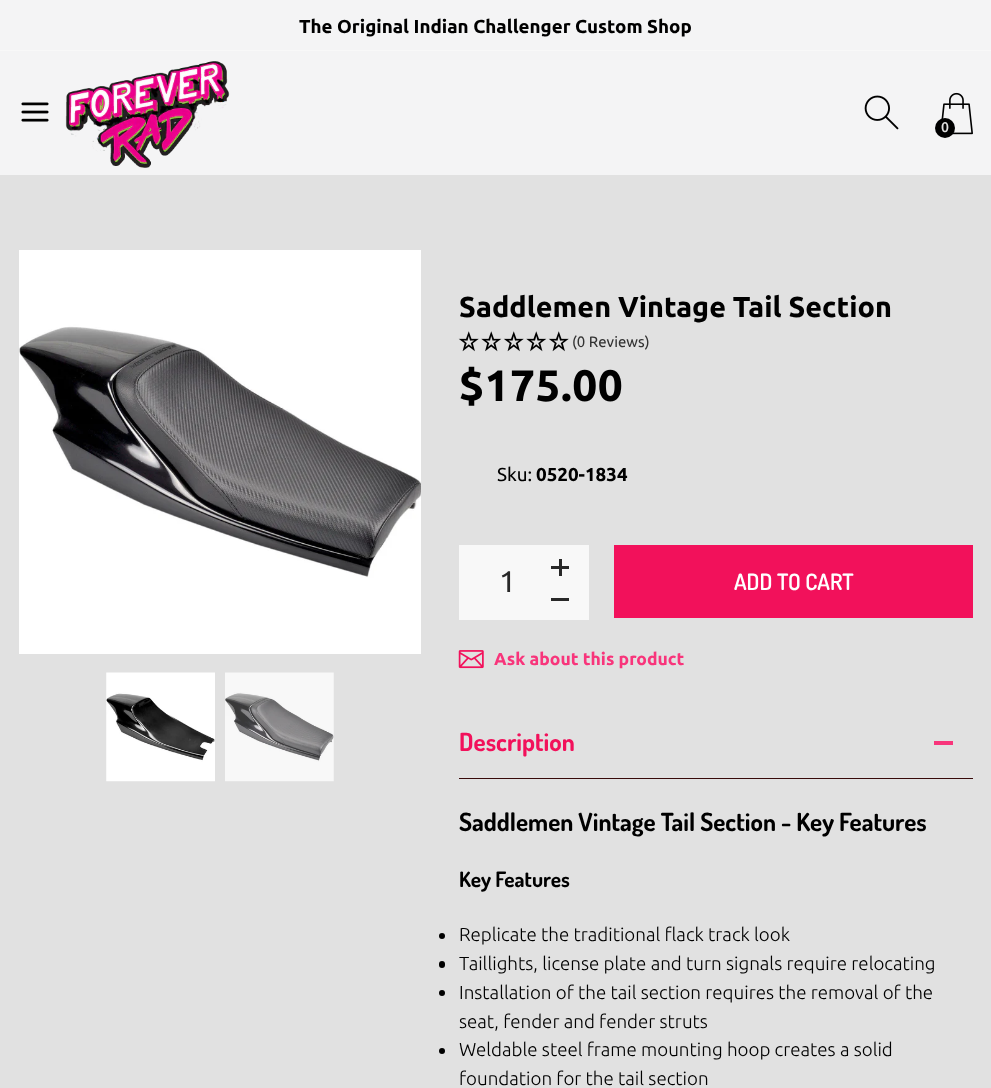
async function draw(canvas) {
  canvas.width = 991
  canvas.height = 1088
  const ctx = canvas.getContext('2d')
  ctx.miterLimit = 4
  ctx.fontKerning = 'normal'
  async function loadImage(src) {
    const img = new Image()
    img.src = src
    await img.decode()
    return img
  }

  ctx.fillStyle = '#e1e1e1'
  ctx.fillRect(0, 0, 991, 1088)
  ctx.fillStyle = '#f4f4f5'
  ctx.fillRect(0, 0, 991, 175)
  ctx.fillStyle = '#f8f8f8'
  ctx.fillRect(0, 50, 991, 1)
  ctx.font = 'bold 18.75px Ubuntu'
  ctx.fillStyle = '#000'
  ctx.fillText('The Original Indian Challenger Custom Shop', 299, 33)
  ctx.drawImage(await loadImage('image0.png'), 21, 102, 28, 20)
  ctx.drawImage(await loadImage('image1.png'), 65, 61, 165, 107)
  ctx.drawImage(await loadImage('image2.png'), 864, 95, 35, 35)
  ctx.drawImage(await loadImage('image3.png'), 941, 92, 32, 43)
  ctx.beginPath()
  ctx.arc(945, 128, 10, 0, 2 * Math.PI)
  ctx.fill()
  ctx.font = '500 14px Ubuntu'
  ctx.fillStyle = '#e1e1e1'
  ctx.fillText('0', 941, 132)
  ctx.drawImage(await loadImage('image4.png'), 19, 250, 402, 404)
  ctx.drawImage(await loadImage('image5.png'), 106, 672, 109, 110)
  ctx.drawImage(await loadImage('image6.png'), 225, 672, 109, 110)
  ctx.font = 'bold 28.75px Ubuntu'
  ctx.fillStyle = '#000'
  ctx.fillText('Saddlemen Vintage Tail Section', 459, 317)
  ctx.drawImage(await loadImage('image7.png'), 458, 331, 21, 21)
  ctx.drawImage(await loadImage('image8.png'), 481, 331, 21, 21)
  ctx.drawImage(await loadImage('image7.png'), 503, 331, 21, 21)
  ctx.drawImage(await loadImage('image8.png'), 526, 331, 21, 21)
  ctx.drawImage(await loadImage('image7.png'), 548, 331, 21, 21)
  ctx.font = '15px Ubuntu'
  ctx.fillStyle = '#333'
  ctx.fillText('(0 Reviews)', 572, 347)
  ctx.letterSpacing = '0.5px'
  ctx.font = 'bold 44px Ubuntu'
  ctx.fillStyle = '#000'
  ctx.fillText('$175.00', 459, 401)
  ctx.letterSpacing = '0px'
  ctx.font = '18.75px Ubuntu'
  ctx.fillText('Sku:', 497, 481)
  ctx.font = 'bold 18.75px Ubuntu'
  ctx.fillText('0520-1834', 536, 481)
  ctx.fillStyle = '#f8f8f8'
  ctx.fillRect(459, 545, 130, 75)
  ctx.fillStyle = '#282828'
  ctx.fillRect(551, 566, 18, 3)
  ctx.fillRect(559, 559, 3, 17)
  ctx.font = '30px Ubuntu'
  ctx.fillText('1', 499, 592)
  ctx.fillRect(551, 598, 18, 3)
  ctx.fillStyle = '#f2115b'
  ctx.fillRect(614, 545, 359, 73)
  ctx.font = '600 22.5px Dosis'
  ctx.fillStyle = '#fff'
  ctx.fillText('ADD TO CART', 734, 590)
  ctx.drawImage(await loadImage('image9.png'), 458, 650, 26, 19)
  ctx.font = 'bold 17.5px Ubuntu'
  ctx.fillStyle = '#f8357b'
  ctx.fillText('Ask about this product', 494, 665)
  ctx.fillStyle = '#380a0a'
  ctx.fillRect(459, 778, 514, 1)
  ctx.font = 'bold 25px Dosis'
  ctx.fillStyle = '#f2115b'
  ctx.fillText('Description', 459, 751)
  ctx.fillStyle = '#f8357b'
  ctx.fillRect(934, 741, 19, 4)
  ctx.fillStyle = '#000'
  ctx.fillText('Saddlemen Vintage Tail Section - Key Features', 459, 831)
  ctx.font = 'bold 21.25px Dosis'
  ctx.fillText('Key Features', 459, 887)
  ctx.beginPath()
  ctx.arc(442, 936, 3, 0, 2 * Math.PI)
  ctx.fill()
  ctx.font = '300 18.75px Ubuntu'
  ctx.fillText('Replicate the traditional flack track look', 459, 941)
  ctx.beginPath()
  ctx.roundRect(439, 961, 6, 7, 3)
  ctx.fill()
  ctx.fillText('Taillights, license plate and turn signals require relocating', 459, 970)
  ctx.beginPath()
  ctx.arc(442, 993, 3, 0, 2 * Math.PI)
  ctx.fill()
  ctx.fillText('Installation of the tail section requires the removal of the', 459, 999)
  ctx.fillText('seat, fender and fender struts', 459, 1028)
  ctx.beginPath()
  ctx.arc(442, 1051, 3, 0, 2 * Math.PI)
  ctx.fill()
  ctx.fillText('Weldable steel frame mounting hoop creates a solid', 459, 1056)
  ctx.fillText('foundation for the tail section', 459, 1085)
}

draw(document.querySelector('canvas'))
